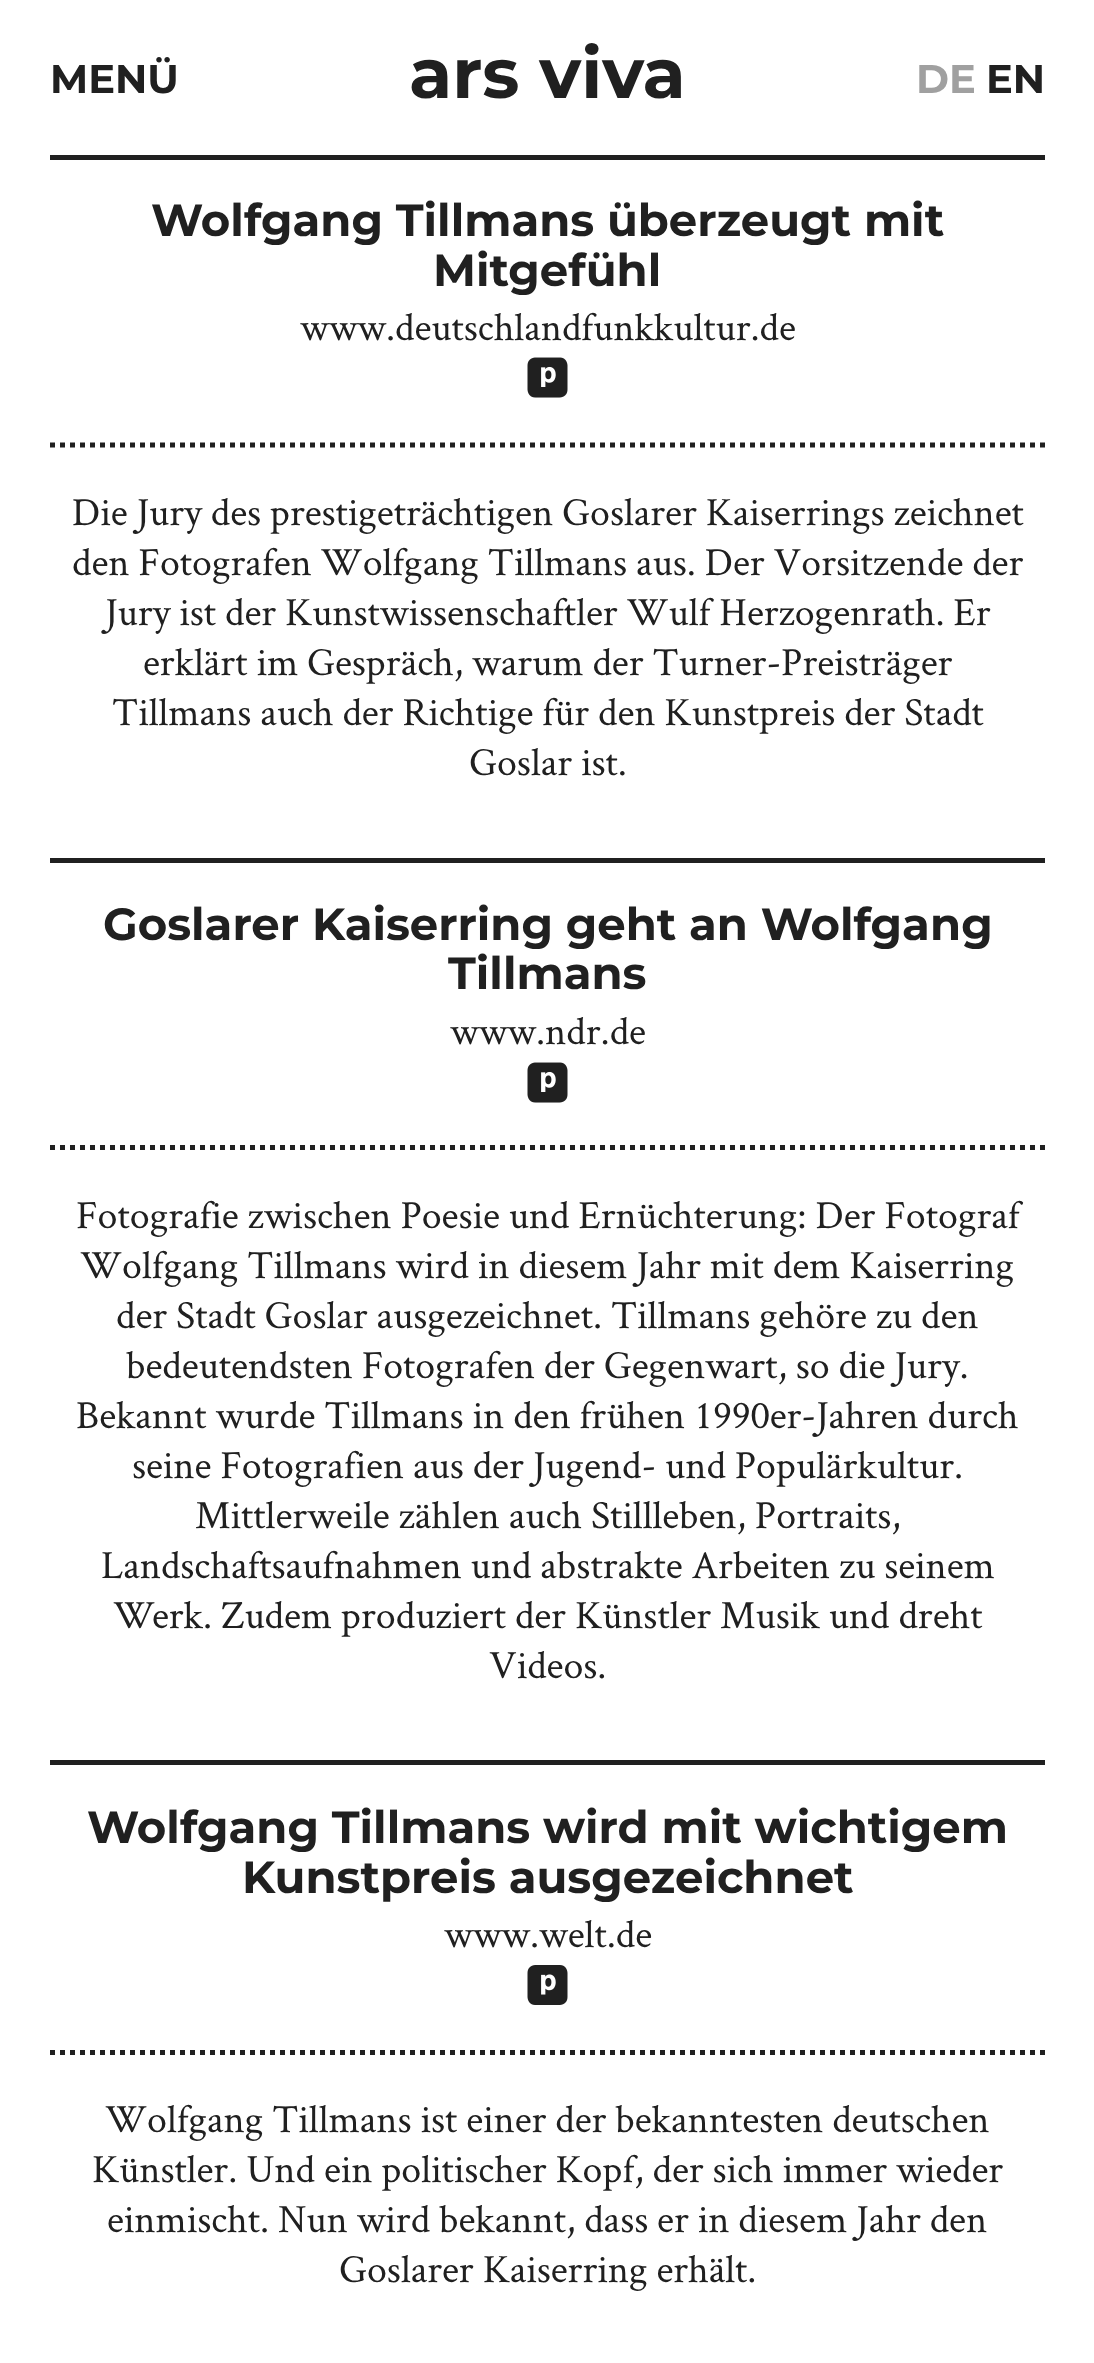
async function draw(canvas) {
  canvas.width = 1094
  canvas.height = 2363
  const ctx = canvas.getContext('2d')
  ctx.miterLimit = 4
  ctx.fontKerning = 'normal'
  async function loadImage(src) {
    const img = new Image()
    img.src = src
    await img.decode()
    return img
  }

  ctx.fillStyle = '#fff'
  ctx.fillRect(0, 0, 1094, 2363)
  ctx.font = 'bold 40px Montserrat'
  ctx.fillStyle = '#202020'
  ctx.fillText('MENÜ', 50, 93)
  ctx.font = 'bold 70px Montserrat'
  ctx.fillText('ars viva', 409, 98)
  ctx.font = 'bold 40px Montserrat'
  ctx.fillStyle = '#a0a0a0'
  ctx.fillText('DE', 916, 93)
  ctx.fillStyle = '#202020'
  ctx.fillText('EN', 986, 93)
  ctx.fillRect(50, 155, 995, 5)
  ctx.fillRect(50, 858, 995, 5)
  ctx.font = 'bold 45px Montserrat'
  ctx.fillText('Wolfgang Tillmans überzeugt mit', 151, 236)
  ctx.fillText('Mitgefühl', 433, 286)
  ctx.font = '40px Crimson Text'
  ctx.fillText('www.deutschlandfunkkultur.de', 300, 340)
  ctx.drawImage(await loadImage('image0.png'), 527, 357, 41, 41)
  ctx.beginPath()
  ctx.moveTo(50, 445)
  ctx.lineTo(1045, 445)
  ctx.strokeStyle = '#202020'
  ctx.lineWidth = 5
  ctx.setLineDash([5, 5])
  ctx.stroke()
  ctx.fillText('Die Jury des prestigeträchtigen Goslarer Kaiserrings zeichnet', 72, 525)
  ctx.fillText('den Fotografen Wolfgang Tillmans aus. Der Vorsitzende der', 72, 575)
  ctx.fillText('Jury ist der Kunstwissenschaftler Wulf Herzogenrath. Er', 105, 625)
  ctx.fillText('erklärt im Gespräch, warum der Turner-Preisträger', 143, 675)
  ctx.fillText('Tillmans auch der Richtige für den Kunstpreis der Stadt', 112, 725)
  ctx.fillText('Goslar ist.', 469, 775)
  ctx.fillRect(50, 1760, 995, 5)
  ctx.font = 'bold 45px Montserrat'
  ctx.fillText('Goslarer Kaiserring geht an Wolfgang', 103, 940)
  ctx.fillText('Tillmans', 448, 989)
  ctx.font = '40px Crimson Text'
  ctx.fillText('www.ndr.de', 450, 1044)
  ctx.drawImage(await loadImage('image0.png'), 527, 1062, 41, 41)
  ctx.beginPath()
  ctx.moveTo(50, 1147.5)
  ctx.lineTo(1045, 1147.5)
  ctx.stroke()
  ctx.fillText('Fotografie zwischen Poesie und Ernüchterung: Der Fotograf', 76, 1228)
  ctx.fillText('Wolfgang Tillmans wird in diesem Jahr mit dem Kaiserring', 80, 1278)
  ctx.fillText('der Stadt Goslar ausgezeichnet. Tillmans gehöre zu den', 116, 1328)
  ctx.fillText('bedeutendsten Fotografen der Gegenwart, so die Jury.', 126, 1378)
  ctx.fillText('Bekannt wurde Tillmans in den frühen 1990er-Jahren durch', 76, 1428)
  ctx.fillText('seine Fotografien aus der Jugend- und Populärkultur.', 132, 1478)
  ctx.fillText('Mittlerweile zählen auch Stillleben, Portraits,', 195, 1528)
  ctx.fillText('Landschaftsaufnahmen und abstrakte Arbeiten zu seinem', 101, 1578)
  ctx.fillText('Werk. Zudem produziert der Künstler Musik und dreht', 113, 1628)
  ctx.fillText('Videos.', 489, 1678)
  ctx.font = 'bold 45px Montserrat'
  ctx.fillText('Wolfgang Tillmans wird mit wichtigem', 87, 1843)
  ctx.fillText('Kunstpreis ausgezeichnet', 242, 1893)
  ctx.font = '40px Crimson Text'
  ctx.fillText('www.welt.de', 444, 1947)
  ctx.drawImage(await loadImage('image1.png'), 527, 1965, 41, 40)
  ctx.beginPath()
  ctx.moveTo(50, 2052.5)
  ctx.lineTo(1045, 2052.5)
  ctx.stroke()
  ctx.fillText('Wolfgang Tillmans ist einer der bekanntesten deutschen', 105, 2132)
  ctx.fillText('Künstler. Und ein politischer Kopf, der sich immer wieder', 92, 2182)
  ctx.fillText('einmischt. Nun wird bekannt, dass er in diesem Jahr den', 107, 2232)
  ctx.fillText('Goslarer Kaiserring erhält.', 339, 2282)
}

draw(document.querySelector('canvas'))
